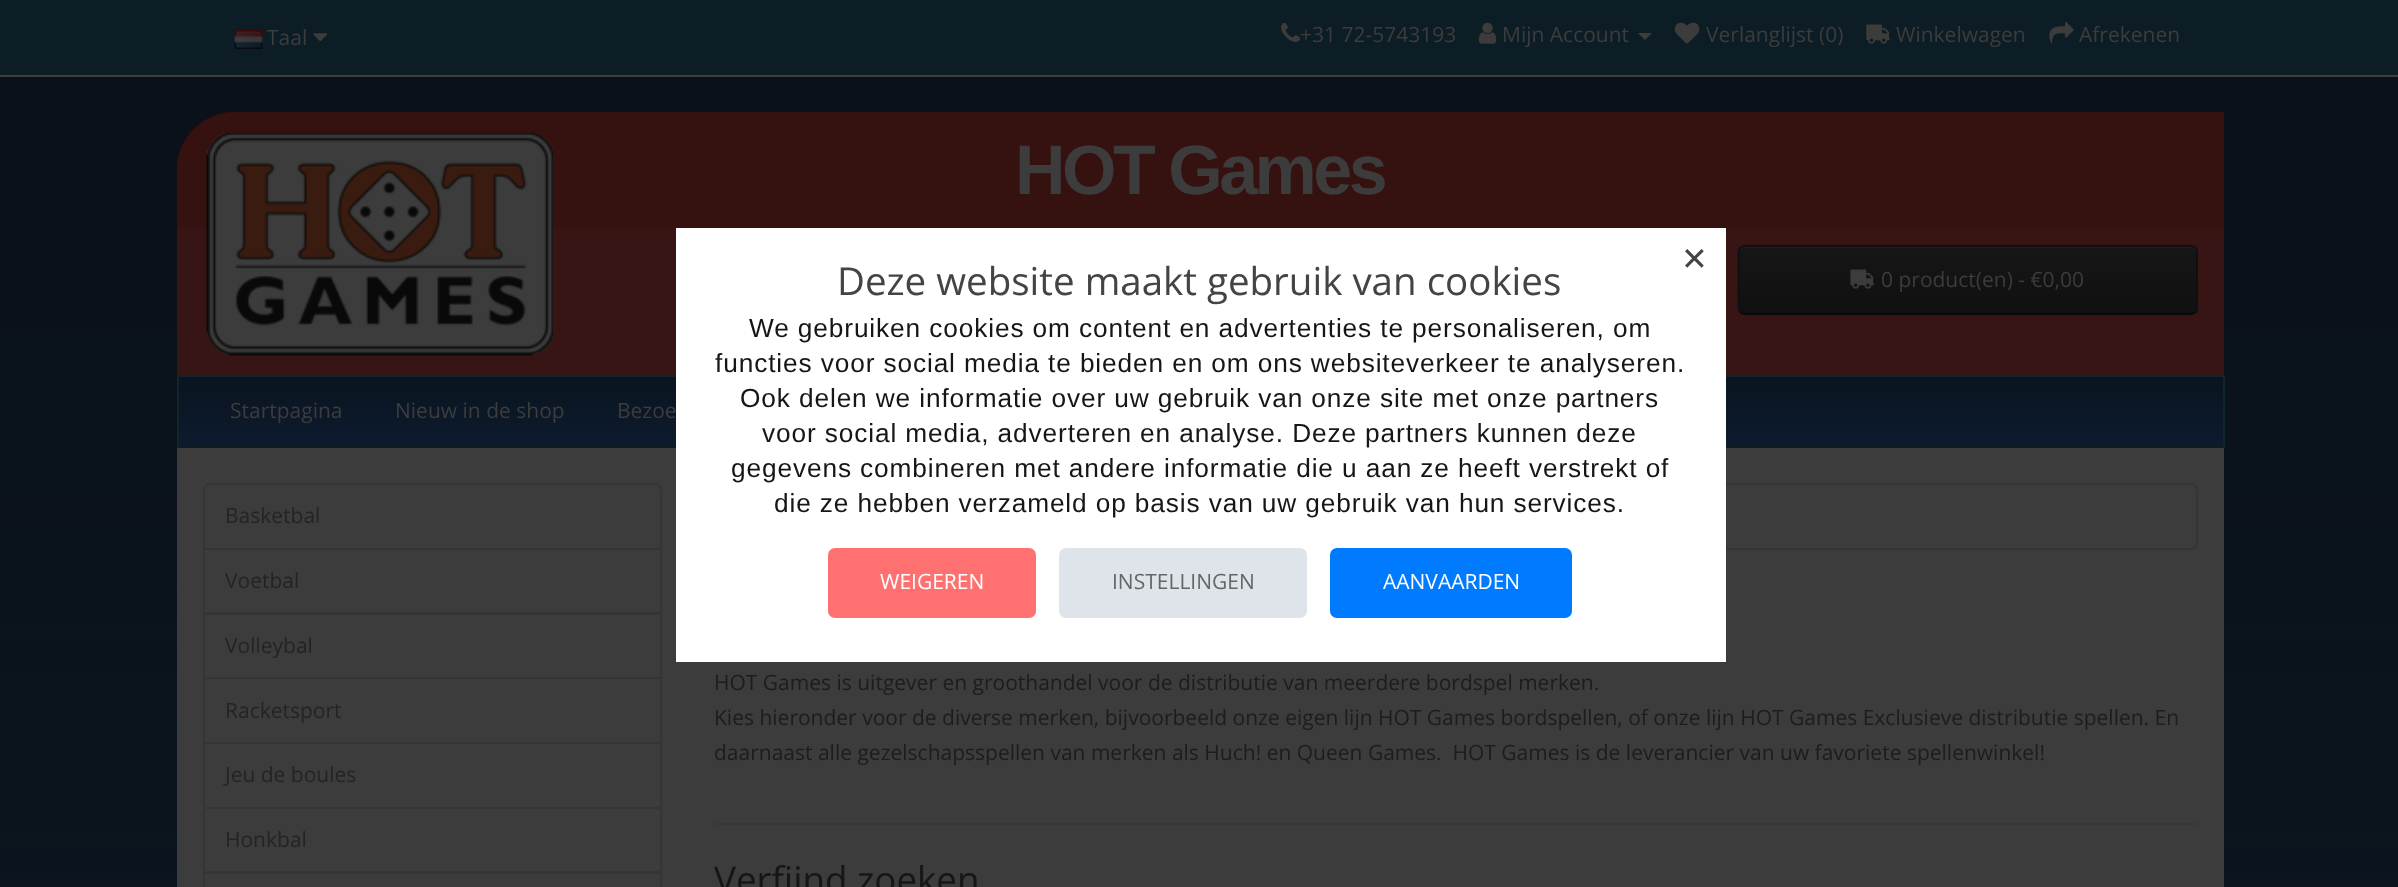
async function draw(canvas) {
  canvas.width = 2398
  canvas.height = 887
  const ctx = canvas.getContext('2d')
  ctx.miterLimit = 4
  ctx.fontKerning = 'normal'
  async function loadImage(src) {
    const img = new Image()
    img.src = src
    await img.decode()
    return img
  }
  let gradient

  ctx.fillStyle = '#fff'
  ctx.fillRect(0, 0, 2398, 887)
  ctx.drawImage(await loadImage('image0.png'), 0, 77, 2398, 810)
  ctx.fillStyle = '#0c1d26'
  ctx.fillRect(0, 0, 2398, 75)
  ctx.fillStyle = '#3c3c3c'
  ctx.fillRect(0, 75, 2398, 2)
  ctx.drawImage(await loadImage('image1.png'), 234, 29, 29, 20)
  ctx.font = '21px Open Sans'
  ctx.fillText('Taal', 267, 45)
  ctx.drawImage(await loadImage('image2.png'), 313, 33, 15, 9)
  ctx.drawImage(await loadImage('image3.png'), 1281, 22, 20, 20)
  ctx.fillText('+31 72-5743193', 1300, 42)
  ctx.drawImage(await loadImage('image4.png'), 1478, 22, 19, 22)
  ctx.fillText('Mijn Account', 1502, 42)
  ctx.beginPath()
  ctx.moveTo(1638, 33)
  ctx.lineTo(1652, 33)
  ctx.lineTo(1645, 40)
  ctx.closePath()
  ctx.fill()
  ctx.drawImage(await loadImage('image5.png'), 1674, 22, 26, 22)
  ctx.fillText('Verlanglijst (0)', 1706, 42)
  ctx.drawImage(await loadImage('image6.png'), 1866, 24, 24, 20)
  ctx.fillText('Winkelwagen', 1896, 42)
  ctx.drawImage(await loadImage('image7.png'), 2049, 21, 25, 23)
  ctx.fillText('Afrekenen', 2079, 42)
  ctx.fillStyle = '#361514'
  ctx.beginPath()
  ctx.roundRect(177, 112, 2047, 263, [58, 0, 0, 0])
  ctx.fill()
  ctx.drawImage(await loadImage('image8.png'), 176, 112, 2049, 116)
  ctx.drawImage(await loadImage('image9.png'), 206, 132, 347, 224)
  ctx.letterSpacing = '-3.5px'
  ctx.font = 'bold 70px Liberation Sans'
  ctx.fillStyle = '#3c3c3c'
  ctx.fillText('HOT Games', 1015, 194)
  ctx.save()
  ctx.beginPath()
  ctx.roundRect(1738, 245, 460, 70, 7)
  ctx.clip()
  gradient = ctx.createLinearGradient(1968, 247, 1968, 313)
  gradient.addColorStop(0, '#161616')
  gradient.addColorStop(1, '#101010')
  ctx.fillStyle = gradient
  ctx.fillRect(1738, 247, 460, 66)
  ctx.restore()
  ctx.fillStyle = '#1e1e1e'
  ctx.beginPath()
  ctx.moveTo(1745, 248)
  ctx.lineTo(2191, 248)
  ctx.bezierCurveTo(2194, 248, 2196, 251, 2196, 254)
  ctx.bezierCurveTo(2196, 251, 2195, 247, 2191, 247)
  ctx.lineTo(1745, 247)
  ctx.bezierCurveTo(1741, 247, 1740, 251, 1740, 254)
  ctx.bezierCurveTo(1740, 251, 1742, 248, 1745, 248)
  ctx.closePath()
  ctx.fill()
  ctx.beginPath()
  ctx.moveTo(2195.5, 312.5)
  ctx.bezierCurveTo(2194, 313.5, 2192.5, 314, 2191, 314)
  ctx.lineTo(1745, 314)
  ctx.bezierCurveTo(1743, 314, 1741.5, 313.5, 1740.5, 312.5)
  ctx.strokeStyle = '#090909'
  ctx.lineWidth = 1.8
  ctx.stroke()
  ctx.beginPath()
  ctx.moveTo(1740.5, 312.5)
  ctx.bezierCurveTo(1739.5, 311, 1738.5, 309.5, 1738.5, 308)
  ctx.lineTo(1738.5, 252)
  ctx.bezierCurveTo(1738.5, 250.5, 1739.5, 249, 1740.5, 247.5)
  ctx.bezierCurveTo(1741.5, 246.5, 1743, 246, 1745, 246)
  ctx.lineTo(2191, 246)
  ctx.bezierCurveTo(2192.5, 246, 2194, 246.5, 2195.5, 247.5)
  ctx.bezierCurveTo(2196.5, 249, 2197, 250.5, 2197, 252)
  ctx.lineTo(2197, 308)
  ctx.bezierCurveTo(2197, 309.5, 2196.5, 311, 2195.5, 312.5)
  ctx.strokeStyle = '#101010'
  ctx.stroke()
  ctx.drawImage(await loadImage('image10.png'), 1850, 269, 24, 20)
  ctx.letterSpacing = '0px'
  ctx.font = '21px Open Sans'
  ctx.fillStyle = '#3c3c3c'
  ctx.fillText('0 product(en) - €0,00', 1881, 287)
  ctx.fillRect(177, 448, 2047, 439)
  gradient = ctx.createLinearGradient(1201, 376, 1201, 446)
  gradient.addColorStop(0, '#0a1420')
  gradient.addColorStop(1, '#0d1b2e')
  ctx.fillStyle = gradient
  ctx.fillRect(179, 377, 2044, 69)
  ctx.fillStyle = '#0f262e'
  ctx.fillRect(177, 375, 2047, 2)
  ctx.fillRect(2223, 375, 2, 73)
  ctx.fillStyle = '#0d1c21'
  ctx.fillRect(177, 446, 2047, 2)
  ctx.fillStyle = '#0f262e'
  ctx.fillRect(177, 375, 2, 73)
  ctx.fillStyle = '#3c3c3c'
  ctx.fillText('Startpagina', 230, 418)
  ctx.fillText('Nieuw in de shop', 395, 418)
  ctx.fillText('Bezoe', 617, 418)
  ctx.beginPath()
  ctx.roundRect(715, 484, 1482, 65, 6)
  ctx.strokeStyle = '#353535'
  ctx.lineWidth = 2
  ctx.stroke()
  ctx.fillStyle = '#fff'
  ctx.fillRect(676, 228, 1050, 434)
  ctx.font = '32px DejaVu Sans'
  ctx.fillStyle = '#444'
  ctx.fillText('✕', 1681, 270)
  ctx.font = '38.5px Open Sans'
  ctx.fillText('Deze website maakt gebruik van cookies', 837, 295)
  ctx.letterSpacing = '0.88px'
  ctx.font = '26.25px Liberation Sans'
  ctx.fillStyle = '#161616'
  ctx.fillText('We gebruiken cookies om content en advertenties te personaliseren, om', 749, 337)
  ctx.fillText('functies voor social media te bieden en om ons websiteverkeer te analyseren.', 715, 372)
  ctx.fillText('Ook delen we informatie over uw gebruik van onze site met onze partners', 740, 407)
  ctx.fillText('voor social media, adverteren en analyse. Deze partners kunnen deze', 762, 442)
  ctx.fillText('gegevens combineren met andere informatie die u aan ze heeft verstrekt of', 731, 477)
  ctx.fillText('die ze hebben verzameld op basis van uw gebruik van hun services.', 774, 512)
  ctx.fillStyle = '#ff7171'
  ctx.beginPath()
  ctx.roundRect(828, 548, 208, 70, 7)
  ctx.fill()
  ctx.letterSpacing = '0px'
  ctx.font = '21px Open Sans'
  ctx.fillStyle = '#fff'
  ctx.fillText('WEIGEREN', 880, 589)
  ctx.fillStyle = '#dfe4eb'
  ctx.beginPath()
  ctx.roundRect(1059, 548, 248, 70, 7)
  ctx.fill()
  ctx.fillStyle = '#666'
  ctx.fillText('INSTELLINGEN', 1112, 589)
  ctx.fillStyle = '#007bff'
  ctx.beginPath()
  ctx.roundRect(1330, 548, 242, 70, 7)
  ctx.fill()
  ctx.fillStyle = '#fff'
  ctx.fillText('AANVAARDEN', 1383, 589)
  ctx.beginPath()
  ctx.roundRect(204, 484, 457, 65, [6, 6, 0, 0])
  ctx.stroke()
  ctx.fillStyle = '#242424'
  ctx.fillText('Basketbal', 225, 523)
  ctx.strokeRect(204, 549, 457, 64)
  ctx.fillText('Voetbal', 225, 588)
  ctx.strokeRect(204, 614, 457, 64)
  ctx.fillText('Volleybal', 225, 653)
  ctx.strokeRect(204, 678, 457, 65)
  ctx.fillText('Racketsport', 225, 718)
  ctx.strokeRect(204, 743, 457, 65)
  ctx.fillText('Jeu de boules', 225, 782)
  ctx.strokeRect(204, 808, 457, 64)
  ctx.fillText('Honkbal', 225, 847)
  ctx.strokeRect(204, 873, 457, 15)
  ctx.fillStyle = '#1d1d1d'
  ctx.fillText('HOT Games is uitgever en groothandel voor de distributie van meerdere bordspel merken.', 714, 690)
  ctx.fillText('Kies hieronder voor de diverse merken, bijvoorbeeld onze eigen lijn HOT Games bordspellen, of onze lijn HOT Games Exclusieve distributie spellen. En', 714, 725)
  ctx.fillText('daarnaast alle gezelschapsspellen van merken als Huch! en Queen Games.  HOT Games is de leverancier van uw favoriete spellenwinkel!', 714, 760)
  ctx.fillStyle = '#383838'
  ctx.fillRect(714, 823, 1484, 2)
  ctx.font = '36.75px Open Sans'
  ctx.fillStyle = '#161616'
  ctx.fillText('Verfijnd zoeken', 714, 893)
}

draw(document.querySelector('canvas'))
